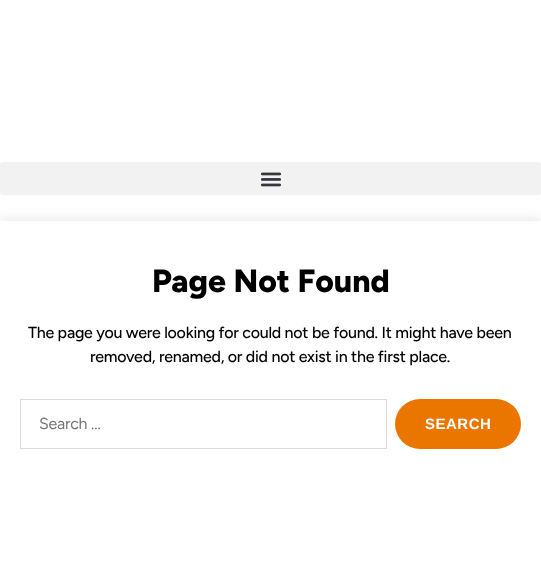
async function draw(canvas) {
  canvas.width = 541
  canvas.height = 577
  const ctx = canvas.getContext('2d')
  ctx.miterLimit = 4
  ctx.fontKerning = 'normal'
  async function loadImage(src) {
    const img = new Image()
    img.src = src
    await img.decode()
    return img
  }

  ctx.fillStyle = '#fff'
  ctx.fillRect(0, 0, 541, 577)
  ctx.fillStyle = '#f2f2f2'
  ctx.beginPath()
  ctx.roundRect(0, 162, 541, 33, 3)
  ctx.fill()
  ctx.drawImage(await loadImage('image0.png'), 260, 172, 22, 15)
  ctx.save()
  ctx.beginPath()
  ctx.rect(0, 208, 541, 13)
  ctx.clip()
  ctx.fillStyle = '#e1dddd'
  ctx.filter = 'blur(6.5px)'
  ctx.beginPath()
  ctx.rect(0, 221, 541, 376)
  ctx.fill()
  ctx.filter = 'none'
  ctx.restore()
  ctx.font = '800 32px Figtree'
  ctx.fillStyle = '#000'
  ctx.fillText('Page Not Found', 152, 292)
  ctx.letterSpacing = '-0.25px'
  ctx.font = '500 16px Figtree'
  ctx.fillText('The page you were looking for could not be found. It might have been', 28, 338)
  ctx.fillText('removed, renamed, or did not exist in the first place.', 90, 362)
  ctx.strokeStyle = '#dbdbdb'
  ctx.strokeRect(20.5, 399.5, 366, 49)
  ctx.font = '16px Figtree'
  ctx.fillStyle = '#757575'
  ctx.fillText('Search …', 39, 429)
  ctx.fillStyle = '#ea7600'
  ctx.beginPath()
  ctx.roundRect(395, 399, 126, 50, 25)
  ctx.fill()
  ctx.letterSpacing = '0.5px'
  ctx.font = 'bold 15px Liberation Sans'
  ctx.fillStyle = '#fff'
  ctx.fillText('SEARCH', 425, 429)
}

draw(document.querySelector('canvas'))
